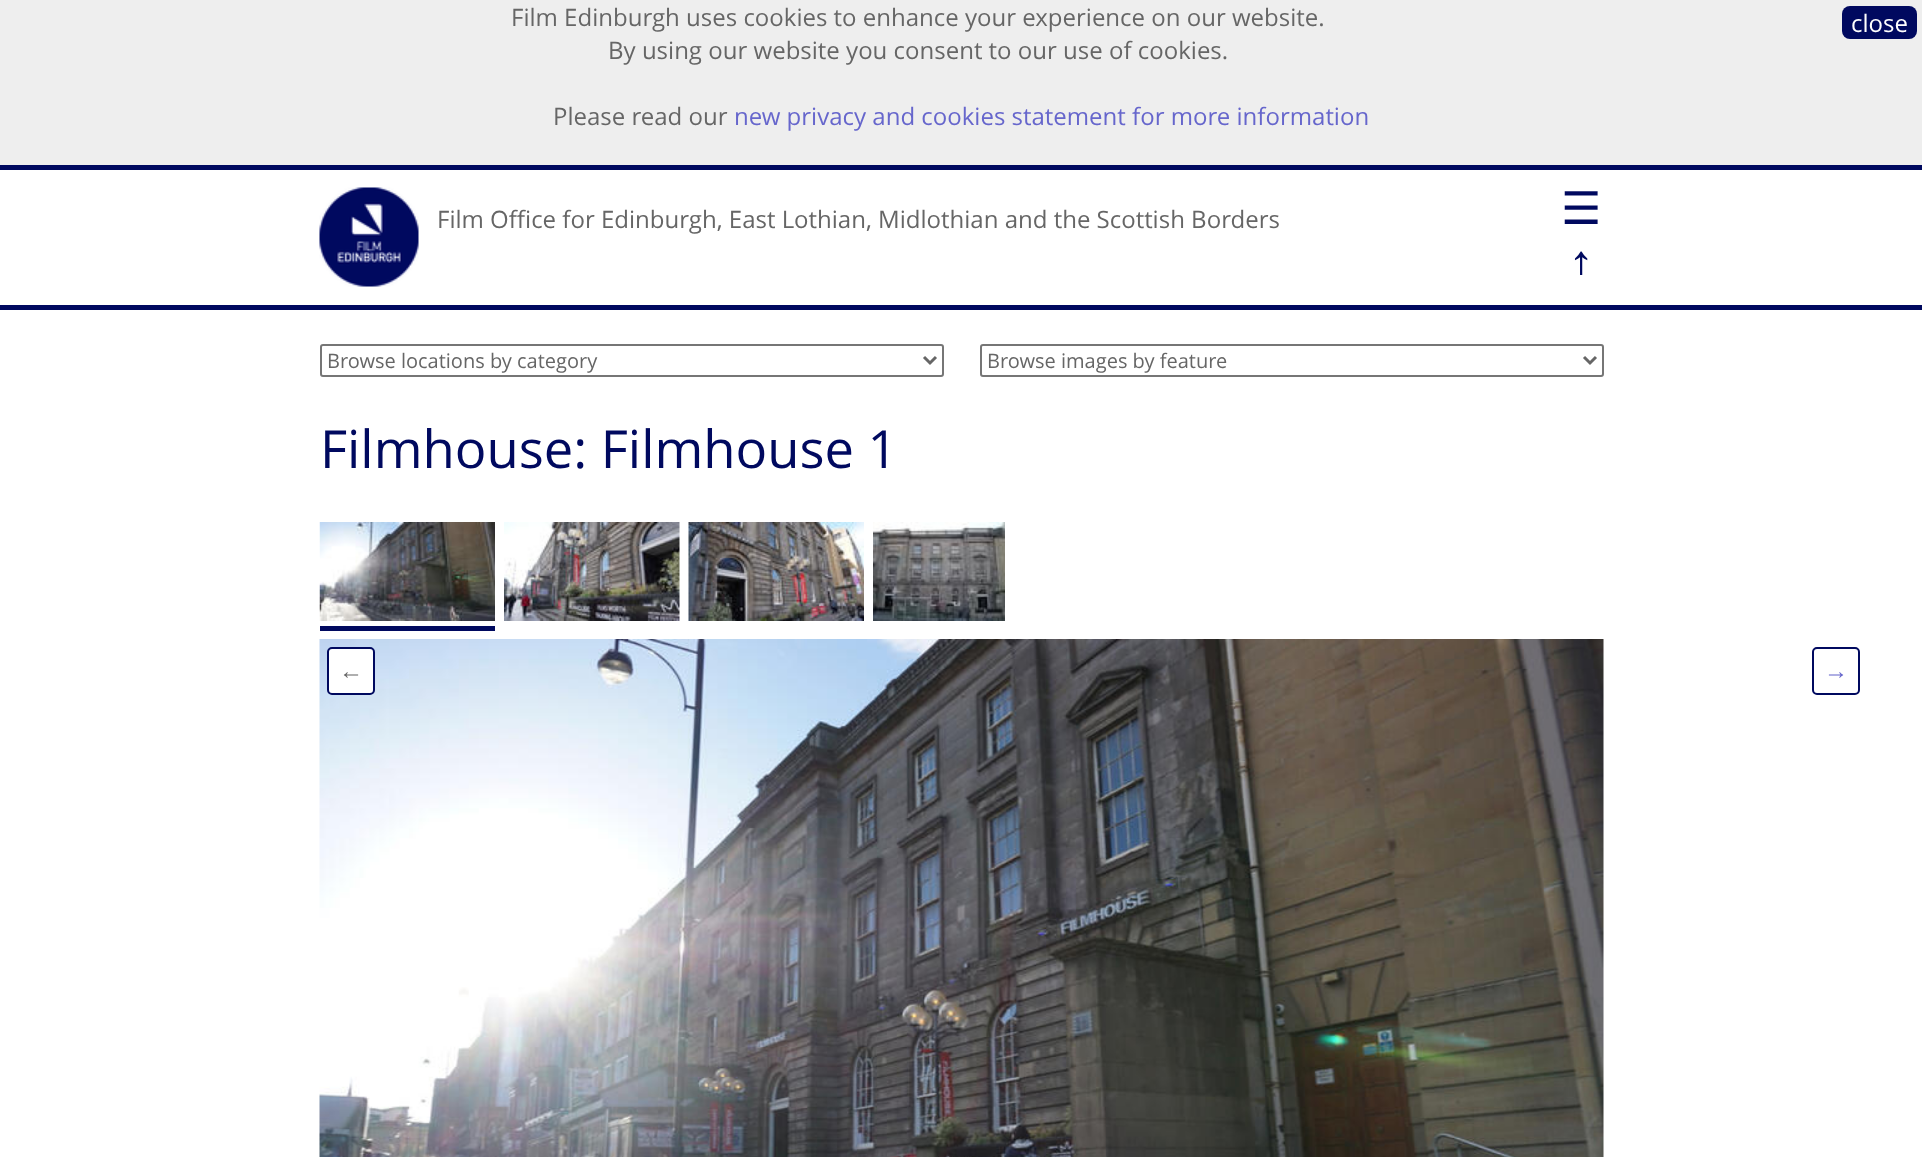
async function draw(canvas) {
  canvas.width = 1922
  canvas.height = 1157
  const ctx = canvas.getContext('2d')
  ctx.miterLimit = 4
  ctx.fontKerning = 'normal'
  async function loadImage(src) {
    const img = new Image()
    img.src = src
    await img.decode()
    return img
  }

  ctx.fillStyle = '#eee'
  ctx.fillRect(0, 0, 1922, 1157)
  ctx.fillStyle = '#00095f'
  ctx.fillRect(0, 165, 1922, 5)
  ctx.font = '24px Open Sans'
  ctx.fillStyle = '#666'
  ctx.fillText('Film Edinburgh uses cookies to enhance your experience on our website.', 511, 26)
  ctx.fillText('By using our website you consent to our use of cookies.', 608, 59)
  ctx.fillStyle = '#00095f'
  ctx.beginPath()
  ctx.roundRect(1842, 6, 75, 33, 8)
  ctx.fill()
  ctx.fillStyle = '#fff'
  ctx.fillText('close', 1851, 32)
  ctx.fillStyle = '#666'
  ctx.fillText('Please read our', 553, 125)
  ctx.fillStyle = '#66c'
  ctx.fillText('new privacy and cookies statement for more information', 734, 125)
  ctx.fillStyle = '#fff'
  ctx.fillRect(0, 170, 1922, 135)
  ctx.drawImage(await loadImage('image0.png'), 319, 187, 100, 100)
  ctx.fillStyle = '#666'
  ctx.fillText('Film Office for Edinburgh, East Lothian, Midlothian and the Scottish Borders', 437, 228)
  ctx.font = '45px DejaVu Sans'
  ctx.fillStyle = '#00095f'
  ctx.fillText('☰', 1561, 224)
  ctx.save()
  ctx.beginPath()
  ctx.rect(1559, 177, 63, 98)
  ctx.clip()
  ctx.font = '52.5px Liberation Serif'
  ctx.fillText('↑', 1568, 281)
  ctx.restore()
  ctx.fillStyle = '#fff'
  ctx.fillRect(0, 310, 1922, 847)
  ctx.fillStyle = '#00095f'
  ctx.fillRect(0, 305, 1922, 5)
  ctx.beginPath()
  ctx.roundRect(321, 345, 622, 31, 2)
  ctx.strokeStyle = '#767676'
  ctx.lineWidth = 2
  ctx.stroke()
  ctx.beginPath()
  ctx.moveTo(924, 357)
  ctx.lineTo(930, 363)
  ctx.lineTo(936, 357)
  ctx.strokeStyle = '#666'
  ctx.lineWidth = 3
  ctx.stroke()
  ctx.font = '20px Open Sans'
  ctx.fillStyle = '#666'
  ctx.fillText('Browse locations by category', 327, 368)
  ctx.beginPath()
  ctx.roundRect(981, 345, 622, 31, 2)
  ctx.strokeStyle = '#767676'
  ctx.lineWidth = 2
  ctx.stroke()
  ctx.beginPath()
  ctx.moveTo(1584, 357)
  ctx.lineTo(1590, 363)
  ctx.lineTo(1596, 357)
  ctx.strokeStyle = '#666'
  ctx.lineWidth = 3
  ctx.stroke()
  ctx.fillText('Browse images by feature', 987, 368)
  ctx.font = '52.5px Open Sans'
  ctx.fillStyle = '#00095f'
  ctx.fillText('Filmhouse: Filmhouse 1', 320, 468)
  ctx.fillRect(320, 626, 175, 5)
  ctx.drawImage(await loadImage('image1.png'), 319, 522, 176, 99)
  ctx.drawImage(await loadImage('image2.png'), 504, 522, 176, 99)
  ctx.drawImage(await loadImage('image3.png'), 688, 522, 176, 99)
  ctx.drawImage(await loadImage('image4.png'), 873, 522, 132, 99)
  ctx.drawImage(await loadImage('image5.png'), 319, 639, 1285, 518)
  ctx.fillStyle = '#fff'
  ctx.beginPath()
  ctx.roundRect(328, 648, 46, 46, 4)
  ctx.fill()
  ctx.strokeStyle = '#00095f'
  ctx.lineWidth = 2
  ctx.stroke()
  ctx.font = '24px Liberation Serif'
  ctx.fillStyle = '#666'
  ctx.fillText('←', 339, 679)
  ctx.beginPath()
  ctx.roundRect(1813, 648, 46, 46, 4)
  ctx.stroke()
  ctx.fillStyle = '#66c'
  ctx.fillText('→', 1824, 679)
}

draw(document.querySelector('canvas'))
